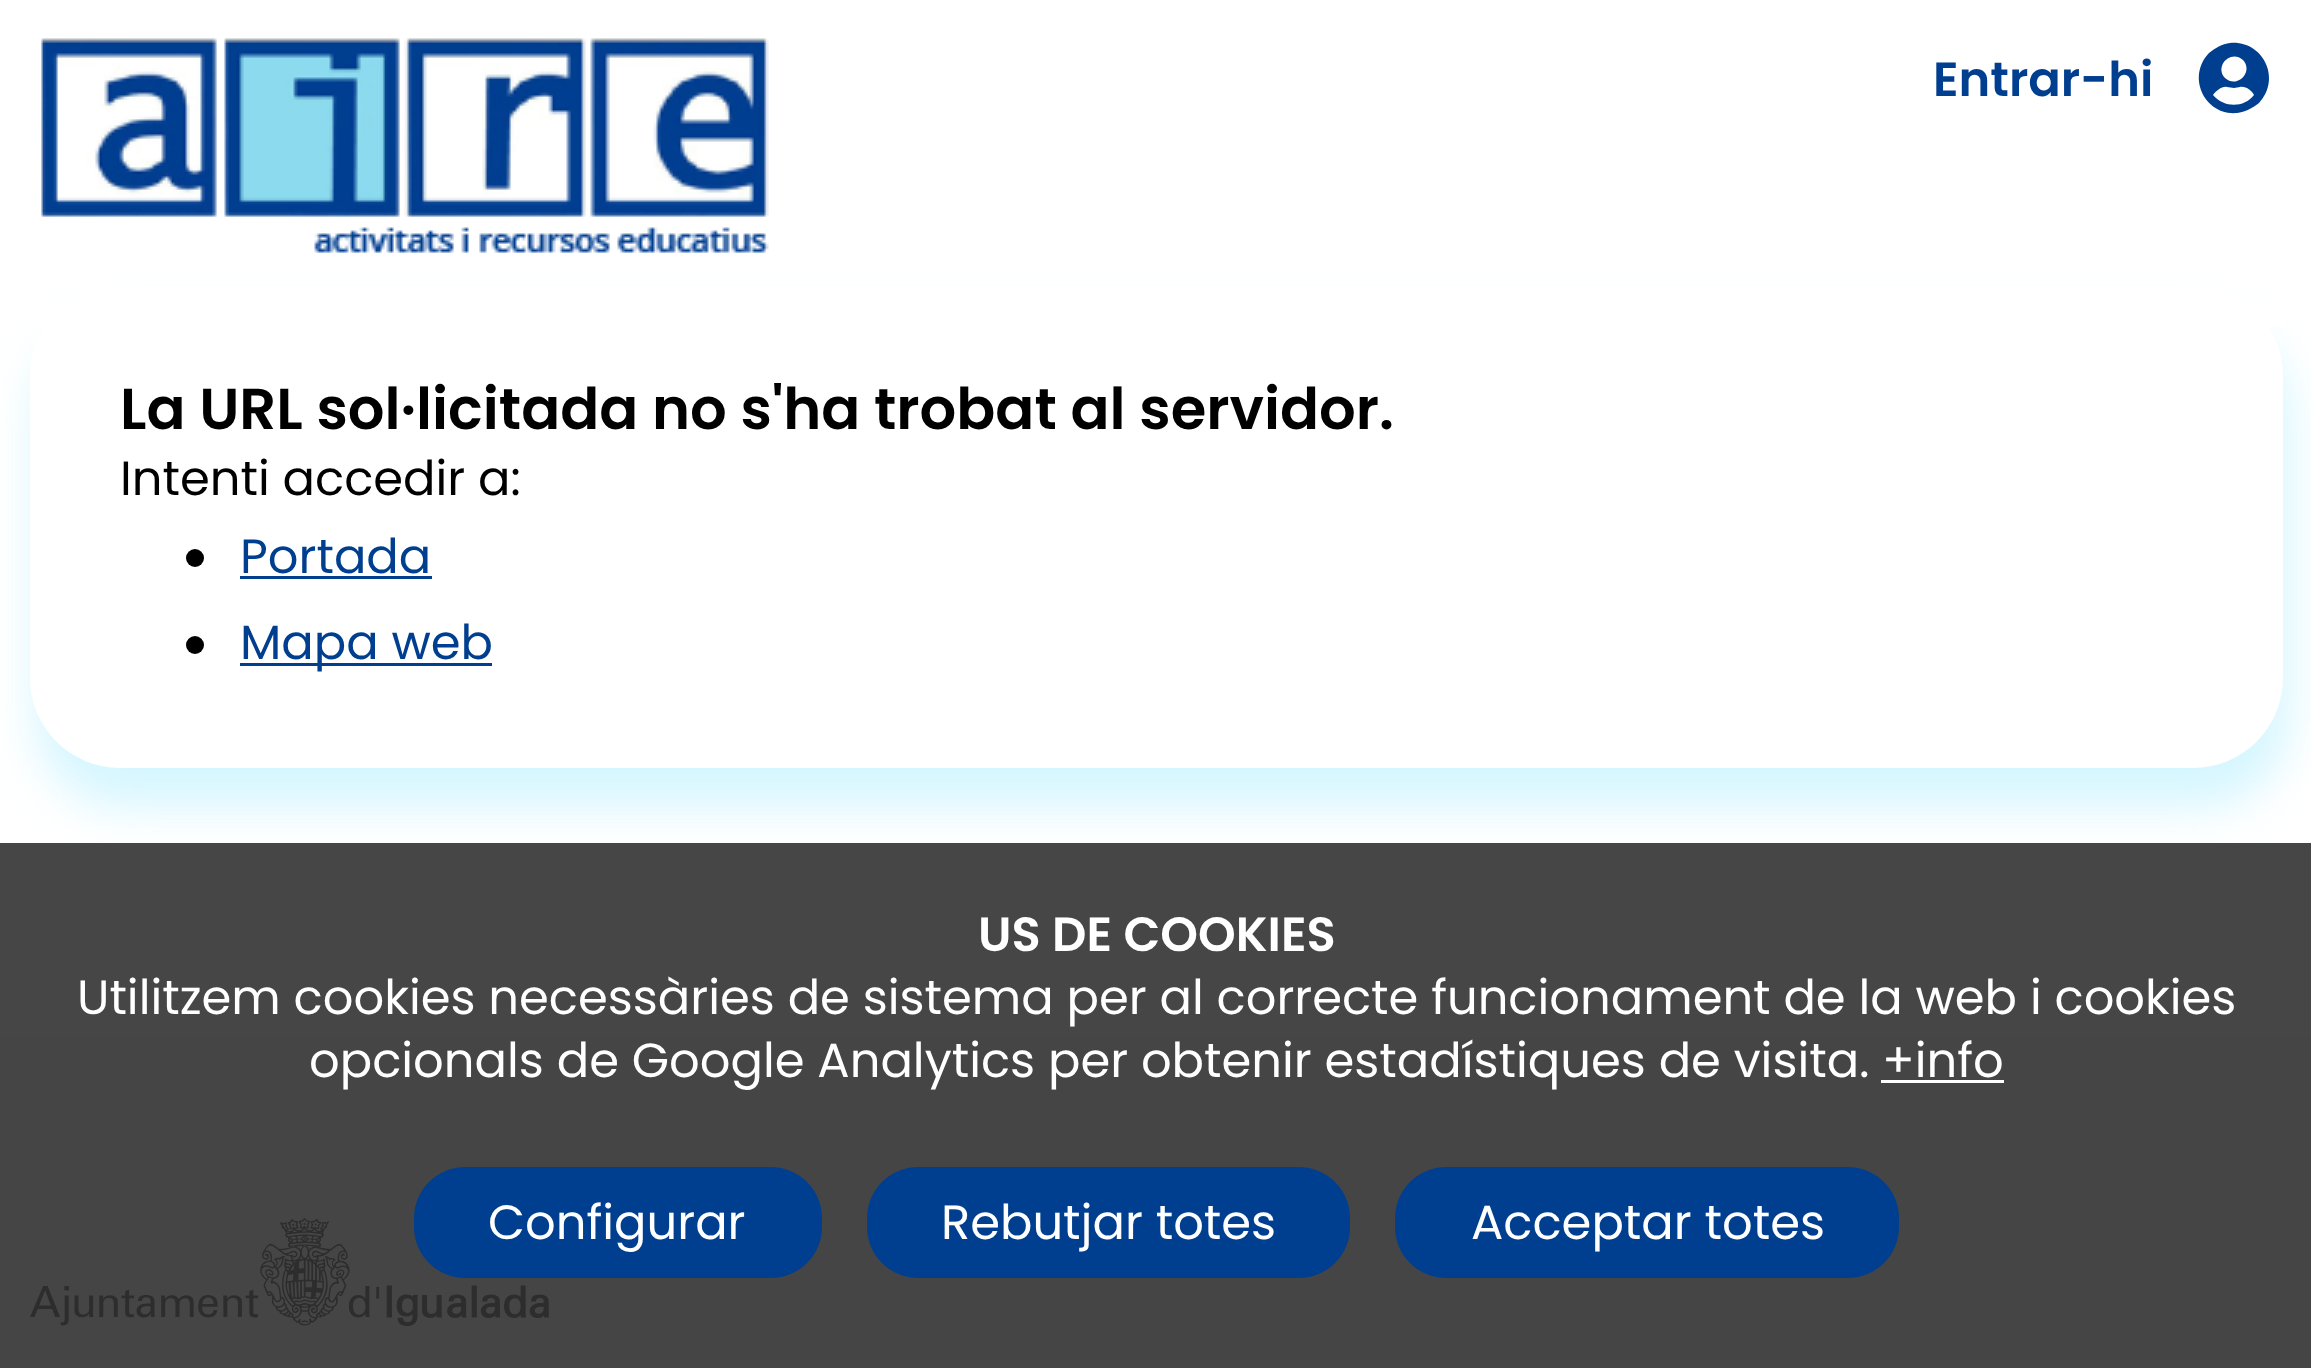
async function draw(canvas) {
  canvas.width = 2311
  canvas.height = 1368
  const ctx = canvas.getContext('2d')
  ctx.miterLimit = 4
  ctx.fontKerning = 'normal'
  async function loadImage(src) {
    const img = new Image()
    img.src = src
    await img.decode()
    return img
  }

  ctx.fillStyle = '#fff'
  ctx.fillRect(0, 0, 2311, 1368)
  ctx.fillStyle = '#86e6ff59'
  ctx.filter = 'blur(22.5px)'
  ctx.beginPath()
  ctx.roundRect(36, 324, 2253, 483, 90)
  ctx.fill()
  ctx.filter = 'none'
  ctx.fillStyle = '#fff'
  ctx.beginPath()
  ctx.roundRect(30, 285, 2253, 483, 90)
  ctx.fill()
  ctx.fillRect(40, 301, 2245, 26)
  ctx.drawImage(await loadImage('image0.png'), 41, 38, 728, 215)
  ctx.font = '600 48px Poppins'
  ctx.fillStyle = '#003f8f'
  ctx.fillText('Entrar-hi', 1933, 96)
  ctx.beginPath()
  ctx.moveTo(2209, 53)
  ctx.bezierCurveTo(2215, 48, 2222, 44, 2230, 43)
  ctx.bezierCurveTo(2263, 40, 2282, 79, 2259, 103)
  ctx.bezierCurveTo(2253, 108, 2245, 112, 2237, 113)
  ctx.bezierCurveTo(2205, 116, 2186, 77, 2209, 53)
  ctx.closePath()
  ctx.moveTo(2243, 60)
  ctx.bezierCurveTo(2231, 49, 2214, 66, 2225, 78)
  ctx.bezierCurveTo(2237, 89, 2254, 72, 2243, 60)
  ctx.closePath()
  ctx.moveTo(2213, 95)
  ctx.bezierCurveTo(2224, 108, 2244, 108, 2254, 95)
  ctx.bezierCurveTo(2252, 91, 2246, 86, 2240, 87)
  ctx.lineTo(2234, 88)
  ctx.lineTo(2227, 87)
  ctx.bezierCurveTo(2222, 86, 2216, 91, 2213, 95)
  ctx.closePath()
  ctx.fill()
  ctx.font = '600 57.6px Poppins'
  ctx.fillStyle = '#000'
  ctx.fillText('La URL sol·licitada no s\'ha trobat al servidor.', 120, 429)
  ctx.font = '48px Poppins'
  ctx.fillText('Intenti accedir a:', 120, 495)
  ctx.beginPath()
  ctx.arc(195, 558, 9, 0, 2 * Math.PI)
  ctx.fill()
  ctx.fillStyle = '#003f8f'
  ctx.fillText('Portada', 240, 573)
  ctx.fillRect(240, 576, 192, 3)
  ctx.fillStyle = '#000'
  ctx.beginPath()
  ctx.arc(195, 645, 9, 0, 2 * Math.PI)
  ctx.fill()
  ctx.fillStyle = '#003f8f'
  ctx.fillRect(240, 663, 252, 3)
  ctx.fillText('Mapa web', 240, 659)
  ctx.fillStyle = '#f2f2f2'
  ctx.fillRect(0, 1038, 2311, 330)
  ctx.drawImage(await loadImage('image1.png'), 30, 1218, 519, 108)
  ctx.fillStyle = '#323232e6'
  ctx.fillRect(0, 843, 2311, 525)
  ctx.font = '600 48px Poppins'
  ctx.fillStyle = '#fff'
  ctx.fillText('US DE COOKIES', 978, 951)
  ctx.font = '48px Poppins'
  ctx.fillText('Utilitzem cookies necessàries de sistema per al correcte funcionament de la web i cookies', 77, 1014)
  ctx.fillText('opcionals de Google Analytics per obtenir estadístiques de visita.', 309, 1077)
  ctx.fillText('+info', 1882, 1077)
  ctx.fillRect(1881, 1080, 123, 3)
  ctx.fillStyle = '#003f8f'
  ctx.beginPath()
  ctx.roundRect(414, 1167, 408, 111, 51)
  ctx.fill()
  ctx.fillStyle = '#fff'
  ctx.fillText('Configurar', 488, 1239)
  ctx.fillStyle = '#003f8f'
  ctx.beginPath()
  ctx.roundRect(867, 1167, 483, 111, 51)
  ctx.fill()
  ctx.fillStyle = '#fff'
  ctx.fillText('Rebutjar totes', 941, 1239)
  ctx.fillStyle = '#003f8f'
  ctx.beginPath()
  ctx.roundRect(1395, 1167, 504, 111, 51)
  ctx.fill()
  ctx.fillStyle = '#fff'
  ctx.fillText('Acceptar totes', 1471, 1239)
}

draw(document.querySelector('canvas'))
